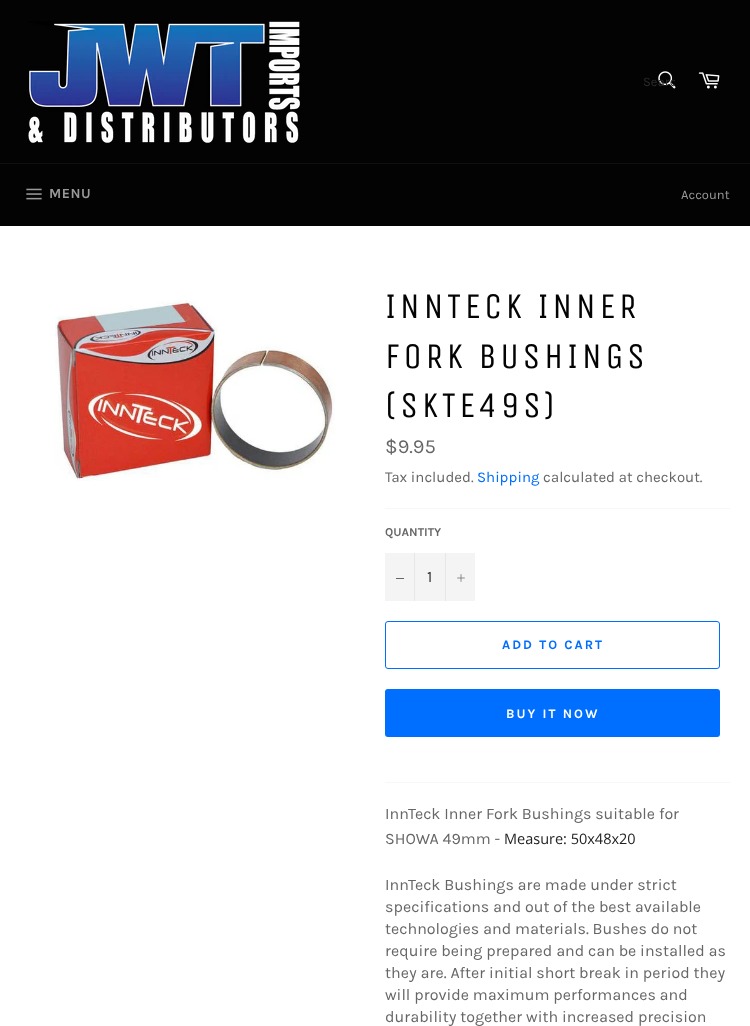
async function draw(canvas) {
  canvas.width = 750
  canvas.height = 1026
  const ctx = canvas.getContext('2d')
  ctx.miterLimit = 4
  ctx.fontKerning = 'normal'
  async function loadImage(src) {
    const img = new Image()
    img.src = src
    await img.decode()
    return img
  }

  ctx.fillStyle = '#030303'
  ctx.fillRect(0, 0, 750, 1026)
  ctx.drawImage(await loadImage('image0.png'), 28, 21, 272, 122)
  ctx.drawImage(await loadImage('image1.png'), 658, 71, 18, 18)
  ctx.save()
  ctx.beginPath()
  ctx.rect(643, 74, 32, 15)
  ctx.clip()
  ctx.font = '13px Karla'
  ctx.fillStyle = '#2b2b2b'
  ctx.fillText('Searc', 643, 86)
  ctx.restore()
  ctx.drawImage(await loadImage('image2.png'), 698, 72, 22, 17)
  ctx.fillStyle = '#101010'
  ctx.fillRect(0, 163, 750, 1)
  ctx.drawImage(await loadImage('image3.png'), 26, 188, 16, 12)
  ctx.letterSpacing = '0.5px'
  ctx.font = 'bold 14px Karla'
  ctx.fillStyle = '#9a9a9a'
  ctx.fillText('MENU', 49, 198)
  ctx.letterSpacing = '0px'
  ctx.font = '13px Karla'
  ctx.fillText('Account', 681, 199)
  ctx.fillStyle = '#fff'
  ctx.fillRect(0, 226, 750, 800)
  ctx.drawImage(await loadImage('image4.png'), 55, 300, 280, 181)
  ctx.letterSpacing = '3.6px'
  ctx.font = '36px Unica One'
  ctx.fillStyle = '#030303'
  ctx.fillText('INNTECK INNER', 385, 318)
  ctx.fillText('FORK BUSHINGS', 385, 368)
  ctx.fillText('(SKTE49S)', 385, 417)
  ctx.letterSpacing = '0px'
  ctx.font = '20px Karla'
  ctx.fillStyle = '#666'
  ctx.fillText('$9.95', 385, 453)
  ctx.font = '15px Karla'
  ctx.fillText('Tax included.', 385, 482)
  ctx.fillStyle = '#006eff'
  ctx.fillText('Shipping', 477, 482)
  ctx.fillStyle = '#666'
  ctx.fillText('calculated at checkout.', 543, 482)
  ctx.fillStyle = '#f7f7f7'
  ctx.fillRect(385, 508, 345, 1)
  ctx.font = 'bold 12px Karla'
  ctx.fillStyle = '#666'
  ctx.fillText('QUANTITY', 385, 536)
  ctx.fillStyle = '#f4f4f4'
  ctx.fillRect(385, 553, 90, 48)
  ctx.fillStyle = '#e7e7e7'
  ctx.fillRect(414, 553, 1, 48)
  ctx.fillStyle = '#666'
  ctx.fillRect(396, 578, 8, 1)
  ctx.font = '16px Karla'
  ctx.fillStyle = '#333'
  ctx.fillText('1', 427, 582)
  ctx.fillStyle = '#e7e7e7'
  ctx.fillRect(445, 553, 1, 48)
  ctx.drawImage(await loadImage('image5.png'), 457, 574, 8, 8)
  ctx.beginPath()
  ctx.roundRect(385.5, 621.5, 334, 47, 2.5)
  ctx.strokeStyle = '#006eff'
  ctx.stroke()
  ctx.letterSpacing = '2px'
  ctx.font = 'bold 13px Karla'
  ctx.fillStyle = '#006eff'
  ctx.fillText('ADD TO CART', 502, 649)
  ctx.beginPath()
  ctx.roundRect(385, 689, 335, 48, 3)
  ctx.fill()
  ctx.fillStyle = '#fff'
  ctx.fillText('BUY IT NOW', 506, 718)
  ctx.fillStyle = '#f7f7f7'
  ctx.fillRect(385, 782, 345, 1)
  ctx.letterSpacing = '0px'
  ctx.font = '16px Karla'
  ctx.fillStyle = '#666'
  ctx.fillText('InnTeck Inner Fork Bushings suitable for', 385, 819)
  ctx.fillText('SHOWA 49mm -', 385, 844)
  ctx.font = '14.5px Open Sans'
  ctx.fillStyle = '#222'
  ctx.fillText('Measure: 50x48x20', 504, 844)
  ctx.font = '16px Karla'
  ctx.fillStyle = '#666'
  ctx.fillText('InnTeck Bushings are made under strict', 385, 890)
  ctx.fillText('specifications and out of the best available', 385, 912)
  ctx.fillText('technologies and materials. Bushes do not', 385, 934)
  ctx.fillText('require being prepared and can be installed as', 385, 956)
  ctx.fillText('they are. After initial short break in period they', 385, 978)
  ctx.fillText('will provide maximum performances and', 385, 1000)
  ctx.fillText('durability together with increased precision', 385, 1022)
}

draw(document.querySelector('canvas'))
